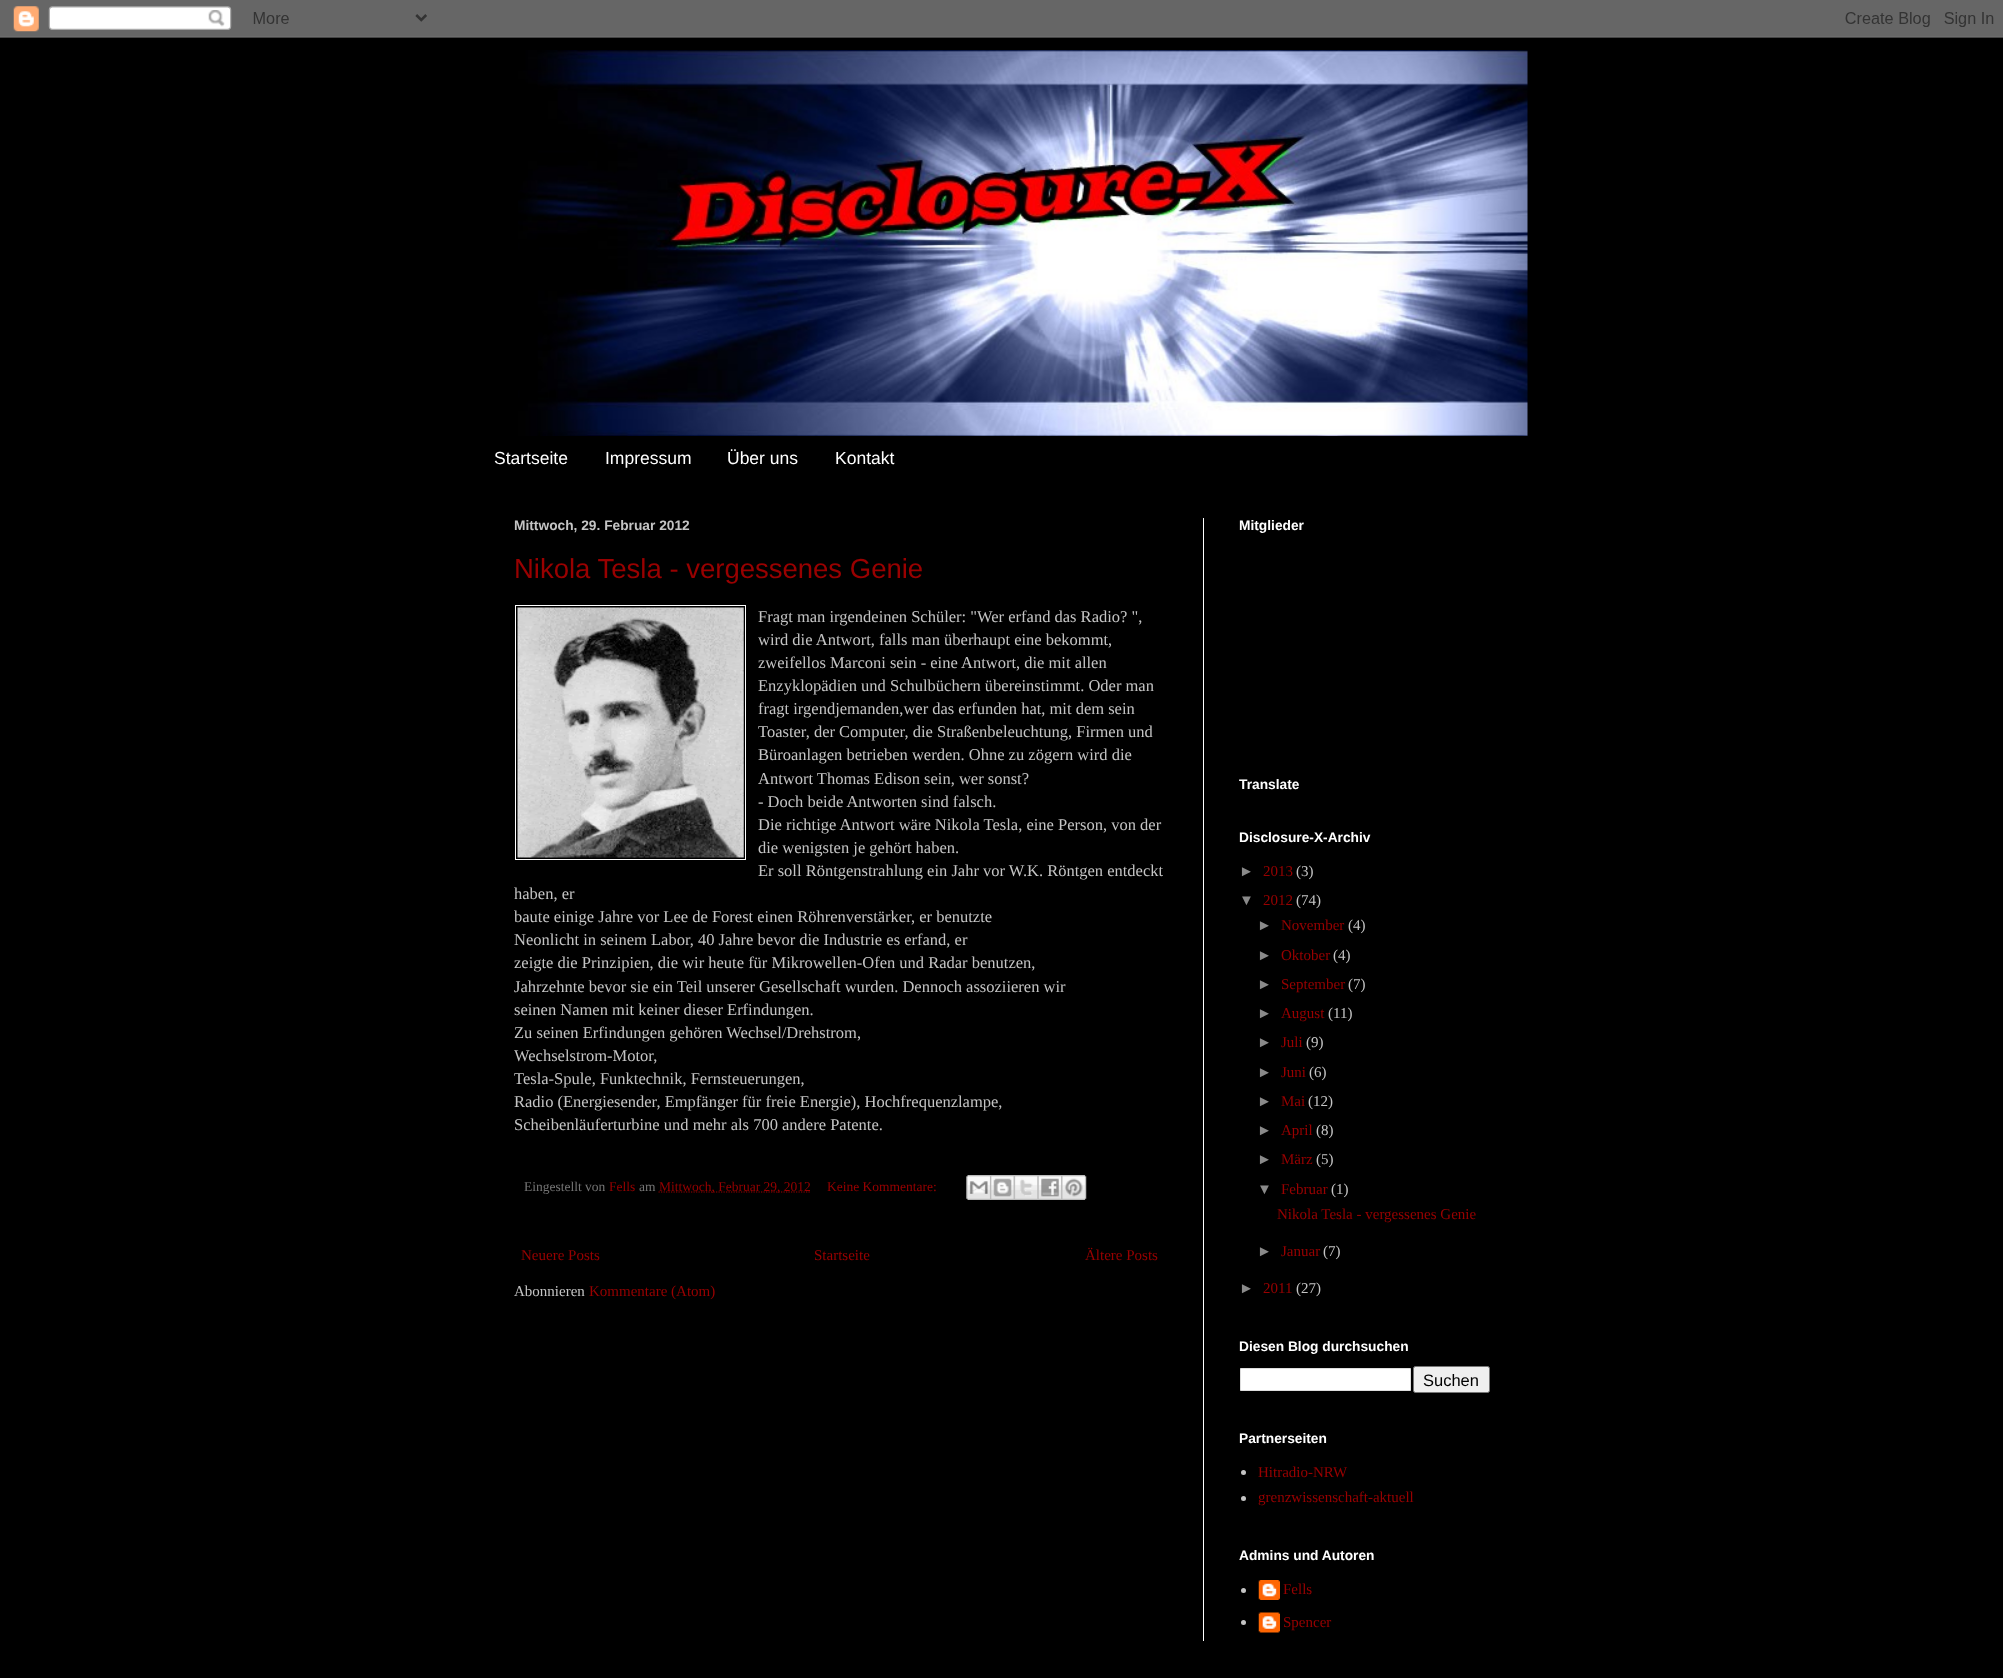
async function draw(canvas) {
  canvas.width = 2003
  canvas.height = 1678
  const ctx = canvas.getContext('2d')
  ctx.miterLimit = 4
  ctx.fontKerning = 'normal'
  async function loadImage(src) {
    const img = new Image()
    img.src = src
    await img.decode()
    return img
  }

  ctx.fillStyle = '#000'
  ctx.fillRect(0, 0, 2003, 1678)
  ctx.drawImage(await loadImage('image0.png'), 0, 0, 2003, 38)
  ctx.drawImage(await loadImage('image1.png'), 518, 50, 1010, 386)
  ctx.font = '17.5px Liberation Sans'
  ctx.fillStyle = '#fff'
  ctx.fillText('Startseite', 494, 464)
  ctx.fillText('Impressum', 605, 464)
  ctx.fillText('Über uns', 727, 464)
  ctx.fillText('Kontakt', 835, 464)
  ctx.fillRect(1203, 518, 1, 1123)
  ctx.font = 'bold 13.75px Liberation Sans'
  ctx.fillStyle = '#c4c4c4'
  ctx.fillText('Mittwoch, 29. Februar 2012', 514, 530)
  ctx.font = '27.5px Liberation Sans'
  ctx.fillStyle = '#900'
  ctx.fillText('Nikola Tesla - vergessenes Genie', 514, 578)
  ctx.strokeStyle = '#fff'
  ctx.strokeRect(515.5, 605.5, 230, 254)
  ctx.drawImage(await loadImage('image2.png'), 517, 607, 227, 251)
  ctx.font = '16.5px Liberation Serif'
  ctx.fillStyle = '#c4c4c4'
  ctx.fillText('Fragt man irgendeinen Schüler: "Wer erfand das Radio? ",', 758, 622)
  ctx.fillText('wird die Antwort, falls man überhaupt eine bekommt,', 758, 645)
  ctx.fillText('zweifellos Marconi sein - eine Antwort, die mit allen', 758, 668)
  ctx.fillText('Enzyklopädien und Schulbüchern übereinstimmt. Oder man', 758, 691)
  ctx.fillText('fragt irgendjemanden,wer das erfunden hat, mit dem sein', 758, 714)
  ctx.fillText('Toaster, der Computer, die Straßenbeleuchtung, Firmen und', 758, 737)
  ctx.fillText('Büroanlagen betrieben werden. Ohne zu zögern wird die', 758, 760)
  ctx.fillText('Antwort Thomas Edison sein, wer sonst?', 758, 784)
  ctx.fillText('- Doch beide Antworten sind falsch.', 758, 807)
  ctx.fillText('Die richtige Antwort wäre Nikola Tesla, eine Person, von der', 758, 830)
  ctx.fillText('die wenigsten je gehört haben.', 758, 853)
  ctx.fillText('Er soll Röntgenstrahlung ein Jahr vor W.K. Röntgen entdeckt', 758, 876)
  ctx.fillText('haben, er', 514, 899)
  ctx.fillText('baute einige Jahre vor Lee de Forest einen Röhrenverstärker, er benutzte', 514, 922)
  ctx.fillText('Neonlicht in seinem Labor, 40 Jahre bevor die Industrie es erfand, er', 514, 945)
  ctx.fillText('zeigte die Prinzipien, die wir heute für Mikrowellen-Ofen und Radar benutzen,', 514, 968)
  ctx.fillText('Jahrzehnte bevor sie ein Teil unserer Gesellschaft wurden. Dennoch assoziieren wir', 514, 992)
  ctx.fillText('seinen Namen mit keiner dieser Erfindungen.', 514, 1015)
  ctx.fillText('Zu seinen Erfindungen gehören Wechsel/Drehstrom,', 514, 1038)
  ctx.fillText('Wechselstrom-Motor,', 514, 1061)
  ctx.fillText('Tesla-Spule, Funktechnik, Fernsteuerungen,', 514, 1084)
  ctx.fillText('Radio (Energiesender, Empfänger für freie Energie), Hochfrequenzlampe,', 514, 1107)
  ctx.fillText('Scheibenläuferturbine und mehr als 700 andere Patente.', 514, 1130)
  ctx.font = '13.5px Liberation Serif'
  ctx.fillStyle = '#757575'
  ctx.fillText('Eingestellt von', 524, 1191)
  ctx.fillStyle = '#900'
  ctx.fillText('Fells', 609, 1191)
  ctx.fillStyle = '#757575'
  ctx.fillText('am', 639, 1191)
  ctx.beginPath()
  ctx.moveTo(658.5, 1192)
  ctx.lineTo(810.5, 1192)
  ctx.strokeStyle = '#900'
  ctx.lineWidth = 1.2
  ctx.setLineDash([1.25, 1.25])
  ctx.stroke()
  ctx.fillStyle = '#900'
  ctx.fillText('Mittwoch, Februar 29, 2012', 659, 1191)
  ctx.fillText('Keine Kommentare:', 827, 1191)
  ctx.drawImage(await loadImage('image3.png'), 966, 1175, 24, 25)
  ctx.drawImage(await loadImage('image4.png'), 990, 1175, 24, 25)
  ctx.drawImage(await loadImage('image5.png'), 1013, 1175, 25, 25)
  ctx.drawImage(await loadImage('image6.png'), 1037, 1175, 25, 25)
  ctx.drawImage(await loadImage('image7.png'), 1061, 1175, 26, 25)
  ctx.font = '15px Liberation Serif'
  ctx.fillText('Neuere Posts', 521, 1260)
  ctx.fillText('Startseite', 814, 1260)
  ctx.fillText('Ältere Posts', 1085, 1260)
  ctx.fillStyle = '#c4c4c4'
  ctx.fillText('Abonnieren', 514, 1296)
  ctx.fillStyle = '#900'
  ctx.fillText('Kommentare (Atom)', 589, 1296)
  ctx.font = 'bold 13.75px Liberation Sans'
  ctx.fillStyle = '#fff'
  ctx.fillText('Mitglieder', 1239, 530)
  ctx.fillText('Translate', 1239, 789)
  ctx.fillText('Disclosure-X-Archiv', 1239, 842)
  ctx.font = '15px Liberation Sans'
  ctx.fillStyle = '#8a8a8a'
  ctx.fillText('►', 1239, 876)
  ctx.font = '15px Liberation Serif'
  ctx.fillStyle = '#900'
  ctx.fillText('2013', 1263, 876)
  ctx.fillStyle = '#c4c4c4'
  ctx.fillText('(3)', 1296, 876)
  ctx.font = '15px Liberation Sans'
  ctx.fillStyle = '#8a8a8a'
  ctx.fillText('▼', 1239, 905)
  ctx.font = '15px Liberation Serif'
  ctx.fillStyle = '#900'
  ctx.fillText('2012', 1263, 905)
  ctx.fillStyle = '#c4c4c4'
  ctx.fillText('(74)', 1296, 905)
  ctx.font = '15px Liberation Sans'
  ctx.fillStyle = '#8a8a8a'
  ctx.fillText('►', 1257, 930)
  ctx.font = '15px Liberation Serif'
  ctx.fillStyle = '#900'
  ctx.fillText('November', 1281, 930)
  ctx.fillStyle = '#c4c4c4'
  ctx.fillText('(4)', 1348, 930)
  ctx.font = '15px Liberation Sans'
  ctx.fillStyle = '#8a8a8a'
  ctx.fillText('►', 1257, 960)
  ctx.font = '15px Liberation Serif'
  ctx.fillStyle = '#900'
  ctx.fillText('Oktober', 1281, 960)
  ctx.fillStyle = '#c4c4c4'
  ctx.fillText('(4)', 1333, 960)
  ctx.font = '15px Liberation Sans'
  ctx.fillStyle = '#8a8a8a'
  ctx.fillText('►', 1257, 989)
  ctx.font = '15px Liberation Serif'
  ctx.fillStyle = '#900'
  ctx.fillText('September', 1281, 989)
  ctx.fillStyle = '#c4c4c4'
  ctx.fillText('(7)', 1348, 989)
  ctx.font = '15px Liberation Sans'
  ctx.fillStyle = '#8a8a8a'
  ctx.fillText('►', 1257, 1018)
  ctx.font = '15px Liberation Serif'
  ctx.fillStyle = '#900'
  ctx.fillText('August', 1281, 1018)
  ctx.fillStyle = '#c4c4c4'
  ctx.fillText('(11)', 1328, 1018)
  ctx.font = '15px Liberation Sans'
  ctx.fillStyle = '#8a8a8a'
  ctx.fillText('►', 1257, 1047)
  ctx.font = '15px Liberation Serif'
  ctx.fillStyle = '#900'
  ctx.fillText('Juli', 1281, 1047)
  ctx.fillStyle = '#c4c4c4'
  ctx.fillText('(9)', 1306, 1047)
  ctx.font = '15px Liberation Sans'
  ctx.fillStyle = '#8a8a8a'
  ctx.fillText('►', 1257, 1077)
  ctx.font = '15px Liberation Serif'
  ctx.fillStyle = '#900'
  ctx.fillText('Juni', 1281, 1077)
  ctx.fillStyle = '#c4c4c4'
  ctx.fillText('(6)', 1309, 1077)
  ctx.font = '15px Liberation Sans'
  ctx.fillStyle = '#8a8a8a'
  ctx.fillText('►', 1257, 1106)
  ctx.font = '15px Liberation Serif'
  ctx.fillStyle = '#900'
  ctx.fillText('Mai', 1281, 1106)
  ctx.fillStyle = '#c4c4c4'
  ctx.fillText('(12)', 1308, 1106)
  ctx.font = '15px Liberation Sans'
  ctx.fillStyle = '#8a8a8a'
  ctx.fillText('►', 1257, 1135)
  ctx.font = '15px Liberation Serif'
  ctx.fillStyle = '#900'
  ctx.fillText('April', 1281, 1135)
  ctx.fillStyle = '#c4c4c4'
  ctx.fillText('(8)', 1316, 1135)
  ctx.font = '15px Liberation Sans'
  ctx.fillStyle = '#8a8a8a'
  ctx.fillText('►', 1257, 1164)
  ctx.font = '15px Liberation Serif'
  ctx.fillStyle = '#900'
  ctx.fillText('März', 1281, 1164)
  ctx.fillStyle = '#c4c4c4'
  ctx.fillText('(5)', 1316, 1164)
  ctx.font = '15px Liberation Sans'
  ctx.fillStyle = '#8a8a8a'
  ctx.fillText('▼', 1257, 1194)
  ctx.font = '15px Liberation Serif'
  ctx.fillStyle = '#900'
  ctx.fillText('Februar', 1281, 1194)
  ctx.fillStyle = '#c4c4c4'
  ctx.fillText('(1)', 1331, 1194)
  ctx.fillStyle = '#900'
  ctx.fillText('Nikola Tesla - vergessenes Genie', 1277, 1219)
  ctx.font = '15px Liberation Sans'
  ctx.fillStyle = '#8a8a8a'
  ctx.fillText('►', 1257, 1256)
  ctx.font = '15px Liberation Serif'
  ctx.fillStyle = '#900'
  ctx.fillText('Januar', 1281, 1256)
  ctx.fillStyle = '#c4c4c4'
  ctx.fillText('(7)', 1323, 1256)
  ctx.font = '15px Liberation Sans'
  ctx.fillStyle = '#8a8a8a'
  ctx.fillText('►', 1239, 1293)
  ctx.font = '15px Liberation Serif'
  ctx.fillStyle = '#900'
  ctx.fillText('2011', 1263, 1293)
  ctx.fillStyle = '#c4c4c4'
  ctx.fillText('(27)', 1296, 1293)
  ctx.font = 'bold 13.75px Liberation Sans'
  ctx.fillStyle = '#fff'
  ctx.fillText('Diesen Blog durchsuchen', 1239, 1351)
  ctx.beginPath()
  ctx.rect(1240.5, 1368.5, 170, 22)
  ctx.fill()
  ctx.strokeStyle = '#ddd'
  ctx.lineWidth = 1
  ctx.setLineDash([])
  ctx.stroke()
  ctx.fillStyle = '#efefef'
  ctx.beginPath()
  ctx.roundRect(1413.5, 1366.5, 76, 26, 2)
  ctx.fill()
  ctx.strokeStyle = '#767676'
  ctx.stroke()
  ctx.font = '16.5px Liberation Sans'
  ctx.fillStyle = '#000'
  ctx.fillText('Suchen', 1423, 1386)
  ctx.font = 'bold 13.75px Liberation Sans'
  ctx.fillStyle = '#fff'
  ctx.fillText('Partnerseiten', 1239, 1443)
  ctx.fillStyle = '#c4c4c4'
  ctx.beginPath()
  ctx.arc(1243.5, 1472.5, 2.5, 0, 2 * Math.PI)
  ctx.fill()
  ctx.font = '15px Liberation Serif'
  ctx.fillStyle = '#900'
  ctx.fillText('Hitradio-NRW', 1258, 1477)
  ctx.fillStyle = '#c4c4c4'
  ctx.beginPath()
  ctx.arc(1243.5, 1498.5, 2.5, 0, 2 * Math.PI)
  ctx.fill()
  ctx.fillStyle = '#900'
  ctx.fillText('grenzwissenschaft-aktuell', 1258, 1502)
  ctx.font = 'bold 13.75px Liberation Sans'
  ctx.fillStyle = '#fff'
  ctx.fillText('Admins und Autoren', 1239, 1560)
  ctx.fillStyle = '#c4c4c4'
  ctx.beginPath()
  ctx.arc(1243.5, 1590.5, 2.5, 0, 2 * Math.PI)
  ctx.fill()
  ctx.drawImage(await loadImage('image8.png'), 1258, 1580, 22, 20)
  ctx.font = '15px Liberation Serif'
  ctx.fillStyle = '#900'
  ctx.fillText('Fells', 1283, 1594)
  ctx.fillStyle = '#c4c4c4'
  ctx.beginPath()
  ctx.arc(1243.5, 1622.5, 2.5, 0, 2 * Math.PI)
  ctx.fill()
  ctx.drawImage(await loadImage('image9.png'), 1258, 1612, 22, 21)
  ctx.fillStyle = '#900'
  ctx.fillText('Spencer', 1283, 1627)
}

draw(document.querySelector('canvas'))
